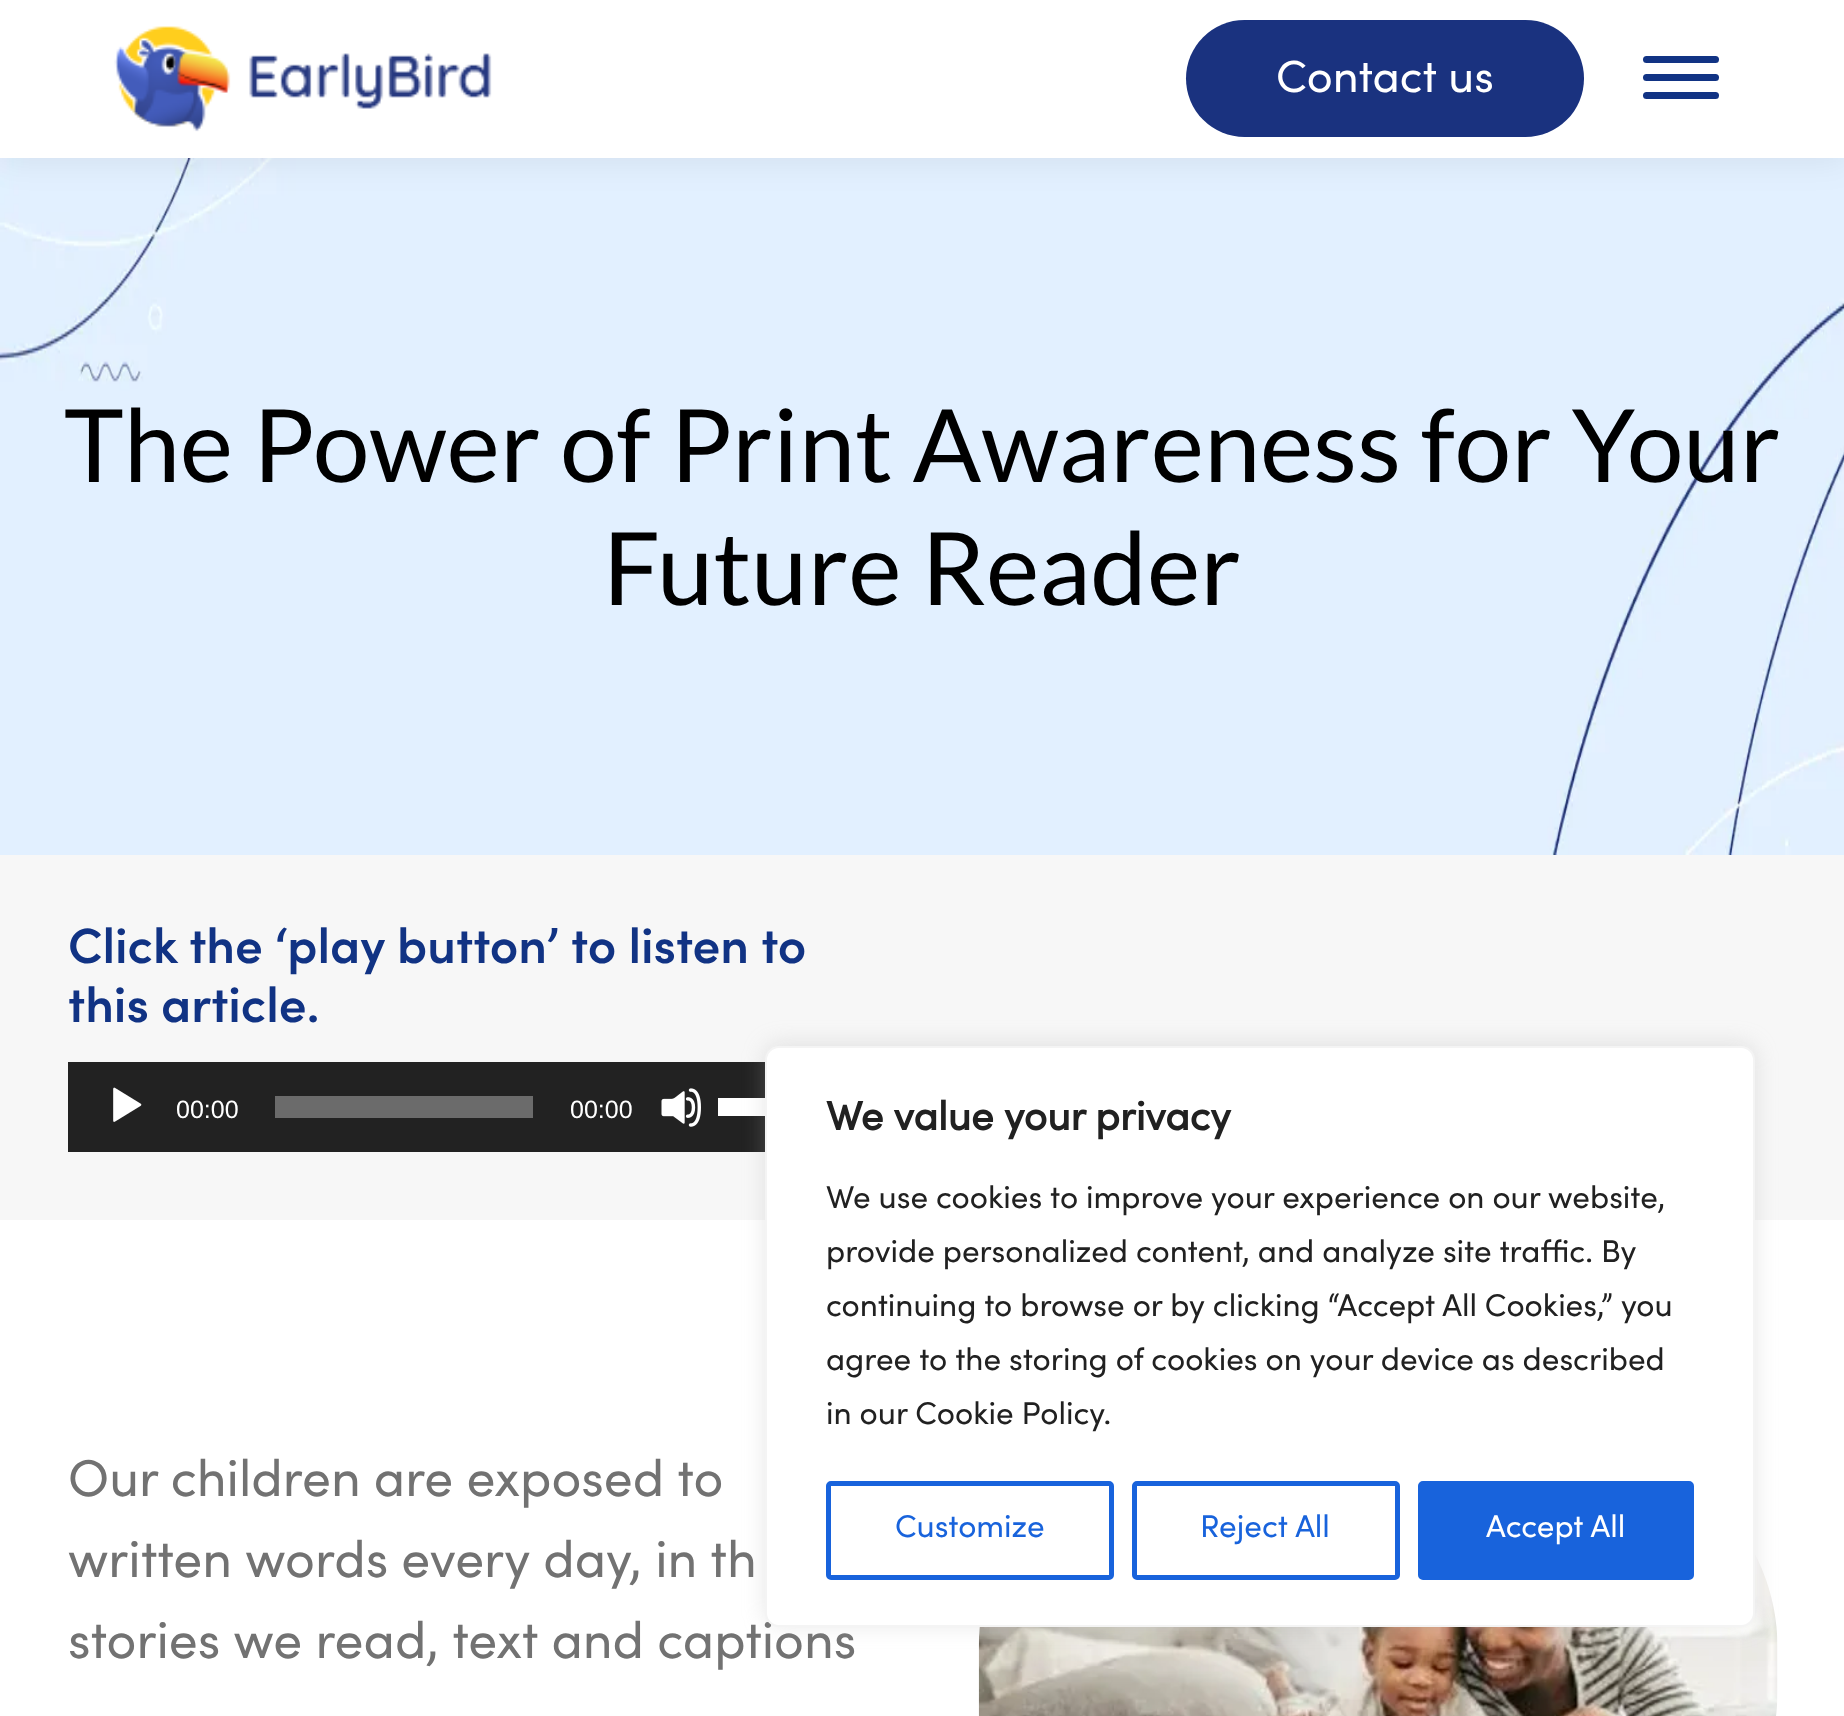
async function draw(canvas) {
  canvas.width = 1844
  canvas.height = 1716
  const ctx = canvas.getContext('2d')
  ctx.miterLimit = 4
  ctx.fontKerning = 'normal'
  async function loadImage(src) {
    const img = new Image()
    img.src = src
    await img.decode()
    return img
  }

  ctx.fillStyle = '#fff'
  ctx.fillRect(0, 0, 1844, 1716)
  ctx.drawImage(await loadImage('image1.png'), 0, 158, 1844, 697)
  ctx.fillStyle = '#00000012'
  ctx.filter = 'blur(17px)'
  ctx.beginPath()
  ctx.rect(-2, -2, 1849, 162)
  ctx.fill()
  ctx.filter = 'none'
  ctx.fillStyle = '#fff'
  ctx.fillRect(0, 0, 1844, 158)
  ctx.drawImage(await loadImage('image0.png'), 114, 26, 378, 106)
  ctx.fillStyle = '#1a327f'
  ctx.beginPath()
  ctx.roundRect(1186, 20, 398, 117, 58.5)
  ctx.fill()
  ctx.font = '45px Sofia'
  ctx.fillStyle = '#fff'
  ctx.fillText('Contact us', 1276, 92)
  ctx.fillStyle = '#113384'
  ctx.beginPath()
  ctx.roundRect(1643, 56, 76, 7, 3.5)
  ctx.fill()
  ctx.beginPath()
  ctx.roundRect(1643, 74, 76, 7, 3.5)
  ctx.fill()
  ctx.beginPath()
  ctx.roundRect(1643, 92, 76, 7, 3.5)
  ctx.fill()
  ctx.font = '101.25px Lato'
  ctx.fillStyle = '#000'
  ctx.fillText('The Power of Print Awareness for Your', 64, 482)
  ctx.fillText('Future Reader', 603, 605)
  ctx.fillStyle = '#f7f7f7'
  ctx.fillRect(0, 855, 1844, 365)
  ctx.font = '600 49.5px Sofia'
  ctx.fillStyle = '#113384'
  ctx.fillText('Click the ‘play button’ to listen to', 68, 963)
  ctx.fillText('this article.', 68, 1022)
  ctx.fillStyle = '#222'
  ctx.fillRect(68, 1062, 697, 90)
  ctx.drawImage(await loadImage('image2.png'), 113, 1087, 29, 35)
  ctx.font = '25px Liberation Sans'
  ctx.fillStyle = '#fff'
  ctx.fillText('00:00', 176, 1118)
  ctx.fillStyle = '#6b6b6b'
  ctx.fillRect(275, 1096, 258, 22)
  ctx.fillStyle = '#fff'
  ctx.fillText('00:00', 570, 1118)
  ctx.drawImage(await loadImage('image3.png'), 661, 1088, 40, 39)
  ctx.fillRect(718, 1098, 47, 18)
  ctx.font = '51.75px Sofia'
  ctx.fillStyle = '#727272'
  ctx.fillText('Our children are exposed to', 68, 1496)
  ctx.fillText('written words every day, in th', 68, 1577)
  ctx.fillText('stories we read, text and captions', 68, 1658)
  ctx.drawImage(await loadImage('image4.png'), 978, 1554, 800, 162)
  ctx.fillStyle = '#acabab4d'
  ctx.filter = 'blur(11px)'
  ctx.beginPath()
  ctx.roundRect(765, 1044, 990, 581, 14)
  ctx.fill()
  ctx.filter = 'none'
  ctx.fillStyle = '#fff'
  ctx.beginPath()
  ctx.roundRect(766, 1047, 988, 579, 13)
  ctx.fill()
  ctx.strokeStyle = '#f4f4f4'
  ctx.lineWidth = 2
  ctx.stroke()
  ctx.font = 'bold 40.5px Sofia'
  ctx.fillStyle = '#212121'
  ctx.fillText('We value your privacy', 826, 1130)
  ctx.font = '31.5px Sofia'
  ctx.fillText('We use cookies to improve your experience on our website,', 826, 1208)
  ctx.fillText('provide personalized content, and analyze site traffic. By', 826, 1262)
  ctx.fillText('continuing to browse or by clicking “Accept All Cookies,” you', 826, 1316)
  ctx.fillText('agree to the storing of cookies on your device as described', 826, 1370)
  ctx.fillText('in our Cookie Policy.', 826, 1424)
  ctx.beginPath()
  ctx.roundRect(828.5, 1483.5, 283, 94, 2.5)
  ctx.strokeStyle = '#1863dc'
  ctx.lineWidth = 5
  ctx.stroke()
  ctx.fillStyle = '#1863dc'
  ctx.fillText('Customize', 895, 1537)
  ctx.beginPath()
  ctx.roundRect(1134.5, 1483.5, 263, 94, 2.5)
  ctx.stroke()
  ctx.fillText('Reject All', 1200, 1537)
  ctx.beginPath()
  ctx.roundRect(1420.5, 1483.5, 271, 94, 2.5)
  ctx.fill()
  ctx.stroke()
  ctx.fillStyle = '#fff'
  ctx.fillText('Accept All', 1486, 1537)
}

draw(document.querySelector('canvas'))
